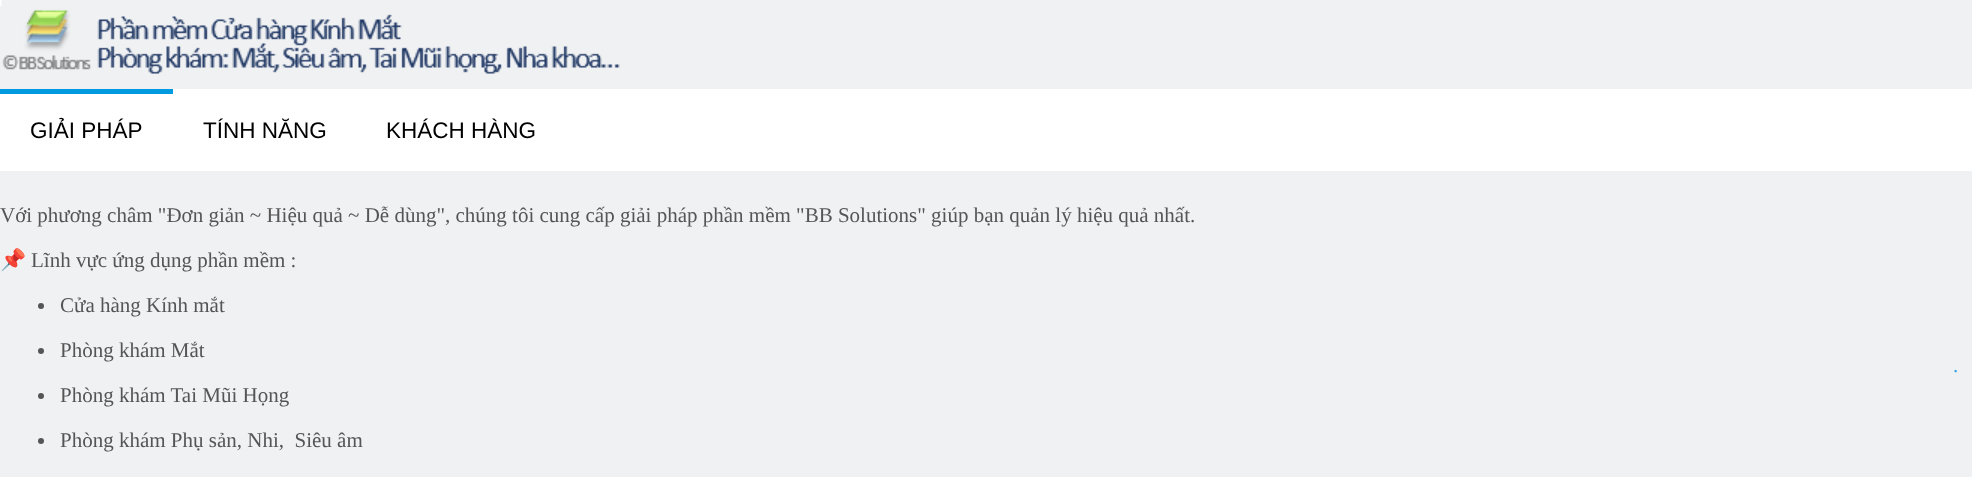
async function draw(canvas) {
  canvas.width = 1972
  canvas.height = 477
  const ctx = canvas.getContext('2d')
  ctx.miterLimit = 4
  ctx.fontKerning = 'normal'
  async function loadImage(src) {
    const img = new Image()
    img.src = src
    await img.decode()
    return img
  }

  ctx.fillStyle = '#f0f1f3'
  ctx.fillRect(0, 0, 1972, 477)
  ctx.drawImage(await loadImage('image0.png'), 0, 0, 620, 74)
  ctx.fillStyle = '#fff'
  ctx.fillRect(0, 89, 1972, 82)
  ctx.fillStyle = '#009ae1'
  ctx.fillRect(0, 89, 173, 5)
  ctx.font = '22.5px Liberation Sans'
  ctx.fillStyle = '#000'
  ctx.fillText('GIẢI PHÁP', 30, 138)
  ctx.fillText('TÍNH NĂNG', 203, 138)
  ctx.fillText('KHÁCH HÀNG', 386, 138)
  ctx.font = '21px Liberation Serif'
  ctx.fillStyle = '#555'
  ctx.fillText('Với phương châm "Đơn giản ~ Hiệu quả ~ Dễ dùng", chúng tôi cung cấp giải pháp phần mềm "BB Solutions" giúp bạn quản lý hiệu quả nhất.', 0, 222)
  ctx.font = '21px Noto Color Emoji'
  ctx.fillText('📌', 0, 267)
  ctx.font = '21px Liberation Serif'
  ctx.fillText('Lĩnh vực ứng dụng phần mềm :', 31, 267)
  ctx.beginPath()
  ctx.arc(41, 306, 3, 0, 2 * Math.PI)
  ctx.fill()
  ctx.fillText('Cửa hàng Kính mắt', 60, 312)
  ctx.beginPath()
  ctx.arc(41, 351, 3, 0, 2 * Math.PI)
  ctx.fill()
  ctx.fillText('Phòng khám Mắt', 60, 357)
  ctx.beginPath()
  ctx.arc(41, 396, 3, 0, 2 * Math.PI)
  ctx.fill()
  ctx.fillText('Phòng khám Tai Mũi Họng', 60, 402)
  ctx.beginPath()
  ctx.arc(41, 441, 3, 0, 2 * Math.PI)
  ctx.fill()
  ctx.fillText('Phòng khám Phụ sản, Nhi,  Siêu âm', 60, 447)
  ctx.fillStyle = '#2fa4e7'
  ctx.fillText('.', 1953, 372)
}

draw(document.querySelector('canvas'))
